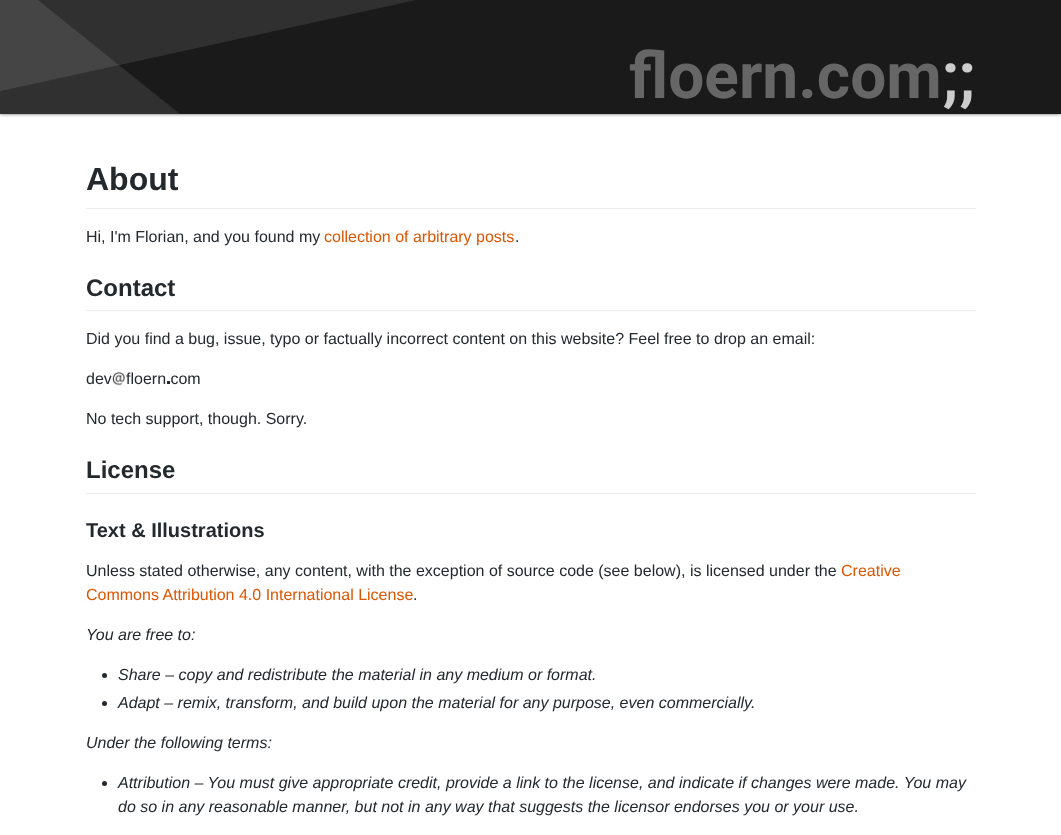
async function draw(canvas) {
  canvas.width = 1061
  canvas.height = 835
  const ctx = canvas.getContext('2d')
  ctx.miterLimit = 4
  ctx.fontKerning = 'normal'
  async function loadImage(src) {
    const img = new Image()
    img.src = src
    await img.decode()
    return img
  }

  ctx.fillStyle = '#fff'
  ctx.fillRect(0, 0, 1061, 835)
  ctx.fillStyle = '#000'
  ctx.filter = 'blur(2px)'
  ctx.beginPath()
  ctx.rect(0, -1, 1061, 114)
  ctx.fill()
  ctx.filter = 'none'
  ctx.fillStyle = '#1a1a1a'
  ctx.fillRect(0, 0, 1061, 114)
  ctx.drawImage(await loadImage('image0.png'), 0, 0, 415, 114)
  ctx.font = 'bold 64px Roboto'
  ctx.fillStyle = '#666'
  ctx.fillText('floern.com', 629, 98)
  ctx.fillStyle = '#ccc'
  ctx.fillText(';;', 942, 98)
  ctx.fillStyle = '#eaecef'
  ctx.fillRect(86, 208, 890, 1)
  ctx.font = 'bold 32px Liberation Sans'
  ctx.fillStyle = '#24292e'
  ctx.fillText('About', 86, 190)
  ctx.font = '16px Liberation Sans'
  ctx.fillText('Hi, I\'m Florian, and you found my', 86, 242)
  ctx.fillStyle = '#d50'
  ctx.fillText('collection of arbitrary posts', 324, 242)
  ctx.fillStyle = '#24292e'
  ctx.fillText('.', 515, 242)
  ctx.fillStyle = '#eaecef'
  ctx.fillRect(86, 310, 890, 1)
  ctx.font = 'bold 24px Liberation Sans'
  ctx.fillStyle = '#24292e'
  ctx.fillText('Contact', 86, 296)
  ctx.font = '16px Liberation Sans'
  ctx.fillText('Did you find a bug, issue, typo or factually incorrect content on this website? Feel free to drop an email:', 86, 344)
  ctx.fillText('dev', 86, 384)
  ctx.drawImage(await loadImage('image1.png'), 112, 372, 14, 14)
  ctx.fillText('floern com', 126, 384)
  ctx.fillStyle = '#fff'
  ctx.fillRect(111, 375, 1, 1)
  ctx.fillStyle = '#282828'
  ctx.fillRect(167, 381, 3, 3)
  ctx.fillStyle = '#24292e'
  ctx.fillText('No tech support, though. Sorry.', 86, 424)
  ctx.fillStyle = '#eaecef'
  ctx.fillRect(86, 493, 890, 1)
  ctx.font = 'bold 24px Liberation Sans'
  ctx.fillStyle = '#24292e'
  ctx.fillText('License', 86, 478)
  ctx.font = 'bold 20px Liberation Sans'
  ctx.fillText('Text & Illustrations', 86, 537)
  ctx.font = '16px Liberation Sans'
  ctx.fillText('Unless stated otherwise, any content, with the exception of source code (see below), is licensed under the', 86, 576)
  ctx.fillStyle = '#d50'
  ctx.fillText('Creative', 841, 576)
  ctx.fillText('Commons Attribution 4.0 International License', 86, 600)
  ctx.fillStyle = '#24292e'
  ctx.fillText('.', 413, 600)
  ctx.font = 'italic 16px Liberation Sans'
  ctx.fillText('You are free to:', 86, 640)
  ctx.beginPath()
  ctx.arc(104.5, 675.5, 2.5, 0, 2 * Math.PI)
  ctx.fill()
  ctx.fillText('Share – copy and redistribute the material in any medium or format.', 118, 680)
  ctx.beginPath()
  ctx.arc(104.5, 703.5, 2.5, 0, 2 * Math.PI)
  ctx.fill()
  ctx.fillText('Adapt – remix, transform, and build upon the material for any purpose, even commercially.', 118, 708)
  ctx.fillText('Under the following terms:', 86, 748)
  ctx.beginPath()
  ctx.arc(104.5, 783.5, 2.5, 0, 2 * Math.PI)
  ctx.fill()
  ctx.fillText('Attribution – You must give appropriate credit, provide a link to the license, and indicate if changes were made. You may', 118, 788)
  ctx.fillText('do so in any reasonable manner, but not in any way that suggests the licensor endorses you or your use.', 118, 812)
}

draw(document.querySelector('canvas'))
